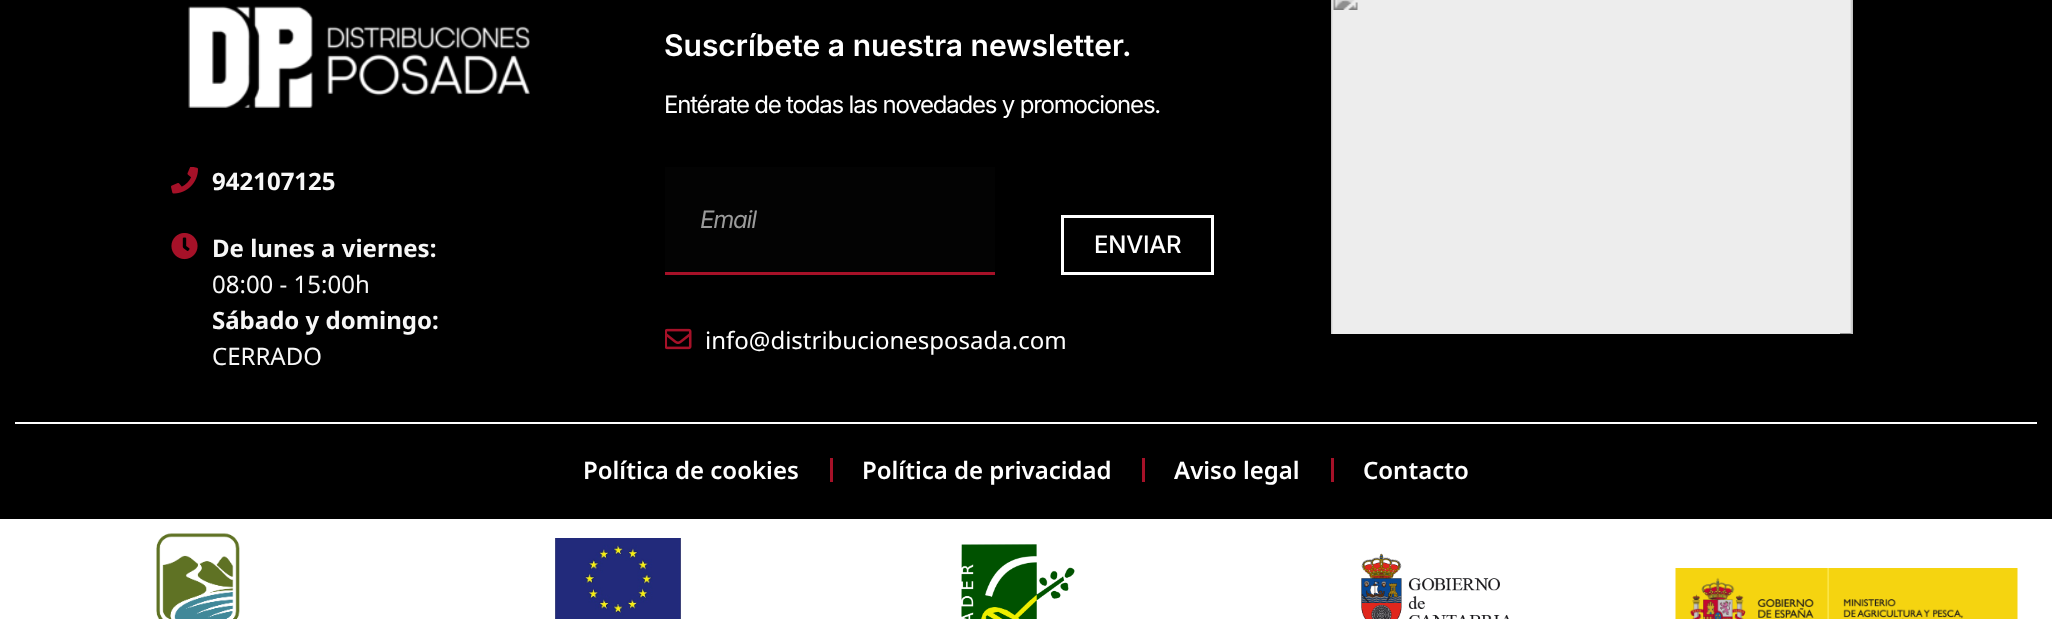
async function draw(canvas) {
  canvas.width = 2052
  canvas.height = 619
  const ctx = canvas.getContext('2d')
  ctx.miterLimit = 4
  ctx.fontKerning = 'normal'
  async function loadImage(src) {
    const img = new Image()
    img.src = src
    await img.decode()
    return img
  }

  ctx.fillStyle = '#000'
  ctx.fillRect(0, 0, 2052, 619)
  ctx.drawImage(await loadImage('image0.png'), 188, 6, 342, 102)
  ctx.drawImage(await loadImage('image1.png'), 171, 167, 27, 27)
  ctx.font = 'bold 24px Noto Sans'
  ctx.fillStyle = '#f7f7f7'
  ctx.fillText('942107125', 212, 190)
  ctx.drawImage(await loadImage('image2.png'), 171, 233, 27, 27)
  ctx.fillText('De lunes a viernes:', 212, 257)
  ctx.font = '24px Noto Sans'
  ctx.fillText('08:00 - 15:00h', 212, 293)
  ctx.font = 'bold 24px Noto Sans'
  ctx.fillText('Sábado y domingo:', 212, 329)
  ctx.font = '24px Noto Sans'
  ctx.fillText('CERRADO', 212, 365)
  ctx.font = '600 30px Inter'
  ctx.fillStyle = '#fff'
  ctx.fillText('Suscríbete a nuestra newsletter.', 664, 56)
  ctx.letterSpacing = '-1.2px'
  ctx.font = '24px Inter'
  ctx.fillText('Entérate de todas las novedades y promociones.', 664, 113)
  ctx.fillStyle = '#030303'
  ctx.fillRect(665, 167, 330, 105)
  ctx.fillStyle = '#a61128'
  ctx.fillRect(665, 272, 330, 3)
  ctx.font = 'italic 24px Inter'
  ctx.fillStyle = '#9a9a9a'
  ctx.fillText('Email', 700, 228)
  ctx.strokeStyle = '#fff'
  ctx.lineWidth = 3
  ctx.strokeRect(1062.5, 216.5, 150, 57)
  ctx.letterSpacing = '-0.25px'
  ctx.font = '500 24px Inter'
  ctx.fillStyle = '#fff'
  ctx.fillText('ENVIAR', 1094, 253)
  ctx.drawImage(await loadImage('image3.png'), 665, 328, 27, 22)
  ctx.letterSpacing = '0px'
  ctx.font = '24px Noto Sans'
  ctx.fillText('info@distribucionesposada.com', 705, 349)
  ctx.drawImage(await loadImage('image4.png'), 1331, 0, 522, 334)
  ctx.fillRect(15, 422, 2022, 2)
  ctx.font = '600 24px Noto Sans'
  ctx.fillText('Política de cookies', 583, 479)
  ctx.fillStyle = '#a61128'
  ctx.fillRect(830, 458, 3, 24)
  ctx.fillStyle = '#fff'
  ctx.fillText('Política de privacidad', 862, 479)
  ctx.fillStyle = '#a61128'
  ctx.fillRect(1142, 458, 3, 24)
  ctx.fillStyle = '#fff'
  ctx.fillText('Aviso legal', 1174, 479)
  ctx.fillStyle = '#a61128'
  ctx.fillRect(1331, 458, 3, 24)
  ctx.fillStyle = '#fff'
  ctx.fillText('Contacto', 1363, 479)
  ctx.fillRect(0, 519, 2052, 100)
  ctx.drawImage(await loadImage('image5.png'), 156, 533, 84, 86)
  ctx.drawImage(await loadImage('image6.png'), 555, 538, 126, 81)
  ctx.drawImage(await loadImage('image7.png'), 961, 544, 114, 75)
  ctx.drawImage(await loadImage('image8.png'), 1361, 553, 148, 66)
  ctx.drawImage(await loadImage('image9.png'), 1675, 568, 343, 51)
}

draw(document.querySelector('canvas'))
